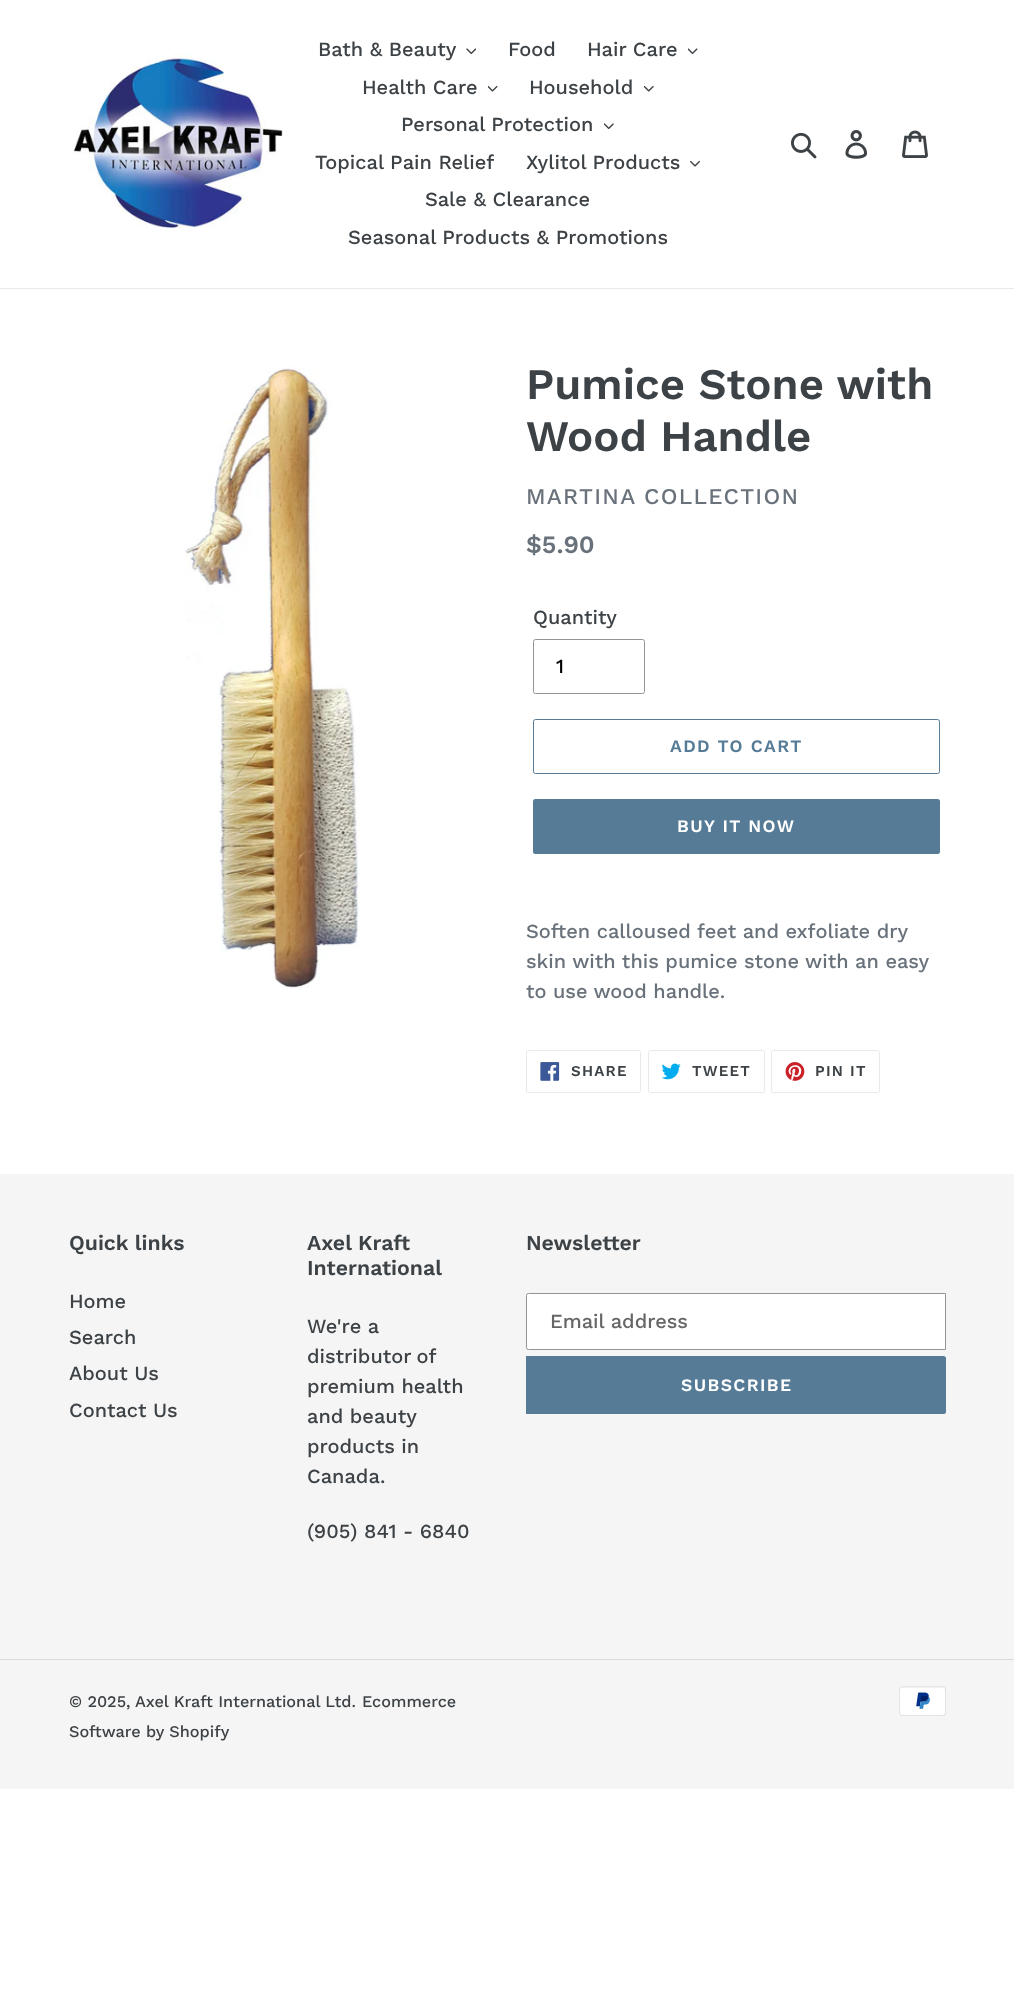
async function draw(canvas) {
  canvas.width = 1014
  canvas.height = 2001
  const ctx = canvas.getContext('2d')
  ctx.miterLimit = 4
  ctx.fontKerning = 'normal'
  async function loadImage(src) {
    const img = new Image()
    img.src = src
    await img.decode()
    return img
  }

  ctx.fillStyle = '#fff'
  ctx.fillRect(0, 0, 1014, 2001)
  ctx.fillStyle = '#e8e9eb'
  ctx.fillRect(0, 288, 1014, 1)
  ctx.drawImage(await loadImage('image0.png'), 72, 53, 211, 175)
  ctx.font = '500 20px Work Sans'
  ctx.fillStyle = '#3d4246'
  ctx.fillText('Bath & Beauty', 318, 56)
  ctx.drawImage(await loadImage('image1.png'), 466, 48, 10, 7)
  ctx.fillText('Food', 508, 56)
  ctx.fillText('Hair Care', 587, 56)
  ctx.drawImage(await loadImage('image2.png'), 688, 48, 10, 7)
  ctx.fillText('Health Care', 362, 94)
  ctx.drawImage(await loadImage('image3.png'), 488, 85, 10, 7)
  ctx.fillText('Household', 529, 94)
  ctx.drawImage(await loadImage('image4.png'), 644, 85, 10, 7)
  ctx.fillText('Personal Protection', 401, 131)
  ctx.drawImage(await loadImage('image5.png'), 604, 123, 10, 7)
  ctx.fillText('Topical Pain Relief', 315, 169)
  ctx.fillText('Xylitol Products', 526, 169)
  ctx.drawImage(await loadImage('image6.png'), 690, 160, 10, 7)
  ctx.fillText('Sale & Clearance', 425, 206)
  ctx.fillText('Seasonal Products & Promotions', 348, 244)
  ctx.drawImage(await loadImage('image7.png'), 791, 132, 26, 27)
  ctx.drawImage(await loadImage('image8.png'), 845, 130, 23, 29)
  ctx.drawImage(await loadImage('image9.png'), 902, 130, 26, 28)
  ctx.drawImage(await loadImage('image10.png'), 185, 367, 174, 621)
  ctx.font = '600 43.75px Work Sans'
  ctx.fillText('Pumice Stone with', 526, 399)
  ctx.fillText('Wood Handle', 526, 451)
  ctx.letterSpacing = '1.25px'
  ctx.font = '500 22.5px Work Sans'
  ctx.fillStyle = '#69727b'
  ctx.fillText('MARTINA COLLECTION', 526, 504)
  ctx.letterSpacing = '0px'
  ctx.font = '600 25px Work Sans'
  ctx.fillText('$5.90', 526, 553)
  ctx.font = '500 20px Work Sans'
  ctx.fillStyle = '#3d4246'
  ctx.fillText('Quantity', 533, 624)
  ctx.beginPath()
  ctx.roundRect(533.5, 639.5, 111, 54, 2)
  ctx.strokeStyle = '#949494'
  ctx.stroke()
  ctx.fillStyle = '#000'
  ctx.fillText('1', 556, 673)
  ctx.beginPath()
  ctx.roundRect(533.5, 719.5, 406, 54, 2)
  ctx.strokeStyle = '#557b97'
  ctx.stroke()
  ctx.letterSpacing = '1.4px'
  ctx.font = '600 17.5px Work Sans'
  ctx.fillStyle = '#557b97'
  ctx.fillText('ADD TO CART', 670, 752)
  ctx.beginPath()
  ctx.roundRect(533, 799, 407, 55, 2.5)
  ctx.fill()
  ctx.fillStyle = '#fff'
  ctx.fillText('BUY IT NOW', 677, 832)
  ctx.letterSpacing = '0px'
  ctx.font = '500 20px Work Sans'
  ctx.fillStyle = '#69727b'
  ctx.fillText('Soften calloused feet and exfoliate dry', 526, 938)
  ctx.fillText('skin with this pumice stone with an easy', 526, 968)
  ctx.fillText('to use wood handle.', 526, 998)
  ctx.beginPath()
  ctx.roundRect(526.5, 1050.5, 114, 42, 2)
  ctx.strokeStyle = '#e8e9eb'
  ctx.stroke()
  ctx.drawImage(await loadImage('image11.png'), 540, 1062, 20, 19)
  ctx.letterSpacing = '1.25px'
  ctx.font = '600 15px Work Sans'
  ctx.fillStyle = '#3d4246'
  ctx.fillText('SHARE', 571, 1076)
  ctx.beginPath()
  ctx.roundRect(648.5, 1050.5, 116, 42, 2)
  ctx.stroke()
  ctx.drawImage(await loadImage('image12.png'), 661, 1063, 20, 17)
  ctx.fillText('TWEET', 692, 1076)
  ctx.beginPath()
  ctx.roundRect(771.5, 1050.5, 108, 42, 2)
  ctx.stroke()
  ctx.drawImage(await loadImage('image13.png'), 785, 1062, 20, 19)
  ctx.fillText('PIN IT', 815, 1076)
  ctx.fillStyle = '#f5f5f5'
  ctx.fillRect(0, 1174, 1014, 615)
  ctx.letterSpacing = '0px'
  ctx.font = '600 21.25px Work Sans'
  ctx.fillStyle = '#3d4246'
  ctx.fillText('Quick links', 69, 1250)
  ctx.font = '500 20px Work Sans'
  ctx.fillText('Home', 69, 1308)
  ctx.fillText('Search', 69, 1344)
  ctx.fillText('About Us', 69, 1380)
  ctx.fillText('Contact Us', 69, 1417)
  ctx.font = '600 21.25px Work Sans'
  ctx.fillText('Axel Kraft', 307, 1250)
  ctx.fillText('International', 307, 1275)
  ctx.font = '500 20px Work Sans'
  ctx.fillText('We\'re a', 307, 1333)
  ctx.wordSpacing = '-1px'
  ctx.fillText('distributor of', 307, 1363)
  ctx.wordSpacing = '0px'
  ctx.fillText('premium health', 307, 1393)
  ctx.fillText('and beauty', 307, 1423)
  ctx.fillText('products in', 307, 1453)
  ctx.fillText('Canada.', 307, 1483)
  ctx.fillText('(905) 841 - 6840', 307, 1538)
  ctx.font = '600 21.25px Work Sans'
  ctx.fillText('Newsletter', 526, 1250)
  ctx.fillStyle = '#fff'
  ctx.beginPath()
  ctx.roundRect(526.5, 1293.5, 419, 56, [2, 0, 0, 2])
  ctx.fill()
  ctx.strokeStyle = '#949494'
  ctx.stroke()
  ctx.font = '500 20px Work Sans'
  ctx.fillStyle = '#666'
  ctx.fillText('Email address', 550, 1328)
  ctx.fillStyle = '#557b97'
  ctx.beginPath()
  ctx.roundRect(526, 1356, 420, 58, [0, 2.5, 2.5, 0])
  ctx.fill()
  ctx.letterSpacing = '1.4px'
  ctx.font = '600 17.5px Work Sans'
  ctx.fillStyle = '#fff'
  ctx.fillText('SUBSCRIBE', 681, 1391)
  ctx.fillStyle = '#dcdcdc'
  ctx.fillRect(0, 1659, 1014, 1)
  ctx.letterSpacing = '0px'
  ctx.font = '500 16.25px Work Sans'
  ctx.fillStyle = '#3d4246'
  ctx.fillText('© 2025,', 69, 1707)
  ctx.fillText('Axel Kraft International Ltd.', 135, 1707)
  ctx.fillText('Ecommerce', 362, 1707)
  ctx.fillText('Software by Shopify', 69, 1737)
  ctx.drawImage(await loadImage('image14.png'), 899, 1686, 47, 30)
}

draw(document.querySelector('canvas'))
